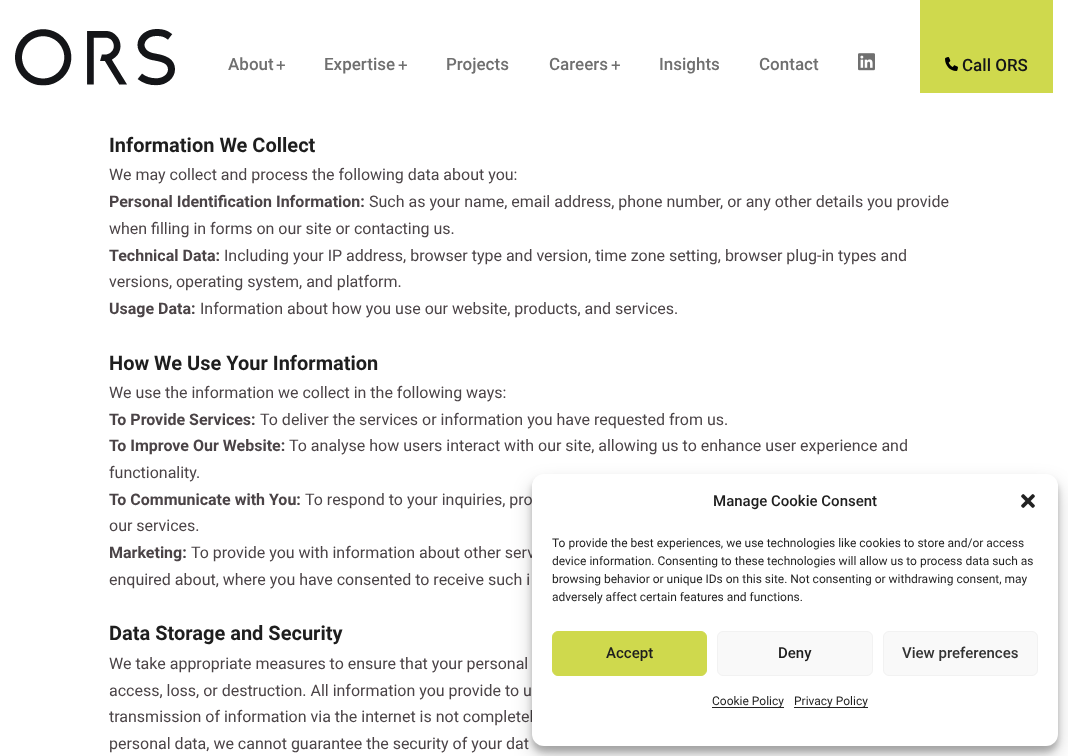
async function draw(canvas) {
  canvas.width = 1068
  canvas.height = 756
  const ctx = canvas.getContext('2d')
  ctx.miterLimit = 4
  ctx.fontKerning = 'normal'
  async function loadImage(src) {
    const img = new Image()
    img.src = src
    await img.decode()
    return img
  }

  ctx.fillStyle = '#fff'
  ctx.fillRect(0, 0, 1068, 756)
  ctx.drawImage(await loadImage('image0.png'), 15, 29, 160, 57)
  ctx.font = '500 17px Roboto'
  ctx.fillStyle = '#707070'
  ctx.fillText('About', 228, 70)
  ctx.font = '17px Roboto'
  ctx.fillText('+', 276, 71)
  ctx.font = '500 17px Roboto'
  ctx.fillText('Expertise', 324, 70)
  ctx.font = '17px Roboto'
  ctx.fillText('+', 398, 71)
  ctx.font = '500 17px Roboto'
  ctx.fillText('Projects', 446, 70)
  ctx.fillText('Careers', 549, 70)
  ctx.font = '17px Roboto'
  ctx.fillText('+', 611, 71)
  ctx.font = '500 17px Roboto'
  ctx.fillText('Insights', 659, 70)
  ctx.fillText('Contact', 759, 70)
  ctx.drawImage(await loadImage('image1.png'), 858, 53, 17, 18)
  ctx.fillStyle = '#cfd94d'
  ctx.fillRect(920, 0, 133, 93)
  ctx.drawImage(await loadImage('image2.png'), 945, 57, 13, 14)
  ctx.fillStyle = '#141518'
  ctx.fillText('Call ORS', 962, 71)
  ctx.font = 'bold 20px Roboto'
  ctx.fillStyle = '#1e1e1e'
  ctx.fillText('Information We Collect', 109, 152)
  ctx.font = '16px Roboto'
  ctx.fillStyle = '#4b4447'
  ctx.fillText('We may collect and process the following data about you:', 109, 180)
  ctx.font = 'bold 16px Roboto'
  ctx.fillText('Personal Identification Information:', 109, 207)
  ctx.font = '16px Roboto'
  ctx.fillText('Such as your name, email address, phone number, or any other details you provide', 369, 207)
  ctx.fillText('when filling in forms on our site or contacting us.', 109, 234)
  ctx.font = 'bold 16px Roboto'
  ctx.fillText('Technical Data:', 109, 261)
  ctx.font = '16px Roboto'
  ctx.fillText('Including your IP address, browser type and version, time zone setting, browser plug-in types and', 224, 261)
  ctx.fillText('versions, operating system, and platform.', 109, 287)
  ctx.font = 'bold 16px Roboto'
  ctx.fillText('Usage Data:', 109, 314)
  ctx.font = '16px Roboto'
  ctx.fillText('Information about how you use our website, products, and services.', 200, 314)
  ctx.font = 'bold 20px Roboto'
  ctx.fillStyle = '#1e1e1e'
  ctx.fillText('How We Use Your Information', 109, 370)
  ctx.font = '16px Roboto'
  ctx.fillStyle = '#4b4447'
  ctx.fillText('We use the information we collect in the following ways:', 109, 398)
  ctx.font = 'bold 16px Roboto'
  ctx.fillText('To Provide Services:', 109, 425)
  ctx.font = '16px Roboto'
  ctx.fillText('To deliver the services or information you have requested from us.', 260, 425)
  ctx.font = 'bold 16px Roboto'
  ctx.fillText('To Improve Our Website:', 109, 451)
  ctx.font = '16px Roboto'
  ctx.fillText('To analyse how users interact with our site, allowing us to enhance user experience and', 289, 451)
  ctx.fillText('functionality.', 109, 478)
  ctx.font = 'bold 16px Roboto'
  ctx.fillText('To Communicate with You:', 109, 505)
  ctx.font = '16px Roboto'
  ctx.fillText('To respond to your inquiries, pro', 305, 505)
  ctx.fillText('our services.', 109, 531)
  ctx.font = 'bold 16px Roboto'
  ctx.fillText('Marketing:', 109, 558)
  ctx.font = '16px Roboto'
  ctx.fillText('To provide you with information about other serv', 191, 558)
  ctx.fillText('enquired about, where you have consented to receive such i', 109, 585)
  ctx.font = 'bold 20px Roboto'
  ctx.fillStyle = '#1e1e1e'
  ctx.fillText('Data Storage and Security', 109, 640)
  ctx.font = '16px Roboto'
  ctx.fillStyle = '#4b4447'
  ctx.fillText('We take appropriate measures to ensure that your personal', 109, 669)
  ctx.fillText('access, loss, or destruction. All information you provide to u', 109, 696)
  ctx.fillText('transmission of information via the internet is not completel', 109, 722)
  ctx.fillText('personal data, we cannot guarantee the security of your dat', 109, 749)
  ctx.fillStyle = '#0000003b'
  ctx.filter = 'blur(3px)'
  ctx.beginPath()
  ctx.roundRect(532, 480, 526, 272, 12)
  ctx.fill()
  ctx.filter = 'none'
  ctx.fillStyle = '#00000030'
  ctx.filter = 'blur(10px)'
  ctx.beginPath()
  ctx.roundRect(532, 484, 526, 272, 12)
  ctx.fill()
  ctx.filter = 'none'
  ctx.fillStyle = '#fff'
  ctx.beginPath()
  ctx.roundRect(532, 474, 526, 272, 12)
  ctx.fill()
  ctx.font = '500 15px Roboto'
  ctx.fillStyle = '#1e1e1e'
  ctx.fillText('Manage Cookie Consent', 713, 506)
  ctx.drawImage(await loadImage('image3.png'), 1021, 494, 14, 14)
  ctx.font = '12px Roboto'
  ctx.fillText('To provide the best experiences, we use technologies like cookies to store and/or access', 552, 547)
  ctx.fillText('device information. Consenting to these technologies will allow us to process data such as', 552, 565)
  ctx.fillText('browsing behavior or unique IDs on this site. Not consenting or withdrawing consent, may', 552, 583)
  ctx.fillText('adversely affect certain features and functions.', 552, 601)
  ctx.fillStyle = '#cfd94d'
  ctx.beginPath()
  ctx.roundRect(552.5, 631.5, 154, 44, 5.5)
  ctx.fill()
  ctx.strokeStyle = '#cfd94d'
  ctx.stroke()
  ctx.font = '500 15px Roboto'
  ctx.fillStyle = '#1e1e1e'
  ctx.fillText('Accept', 606, 658)
  ctx.fillStyle = '#f9f9f9'
  ctx.beginPath()
  ctx.roundRect(717.5, 631.5, 155, 44, 5.5)
  ctx.fill()
  ctx.strokeStyle = '#f2f2f2'
  ctx.stroke()
  ctx.fillStyle = '#1e1e1e'
  ctx.fillText('Deny', 778, 658)
  ctx.fillStyle = '#f9f9f9'
  ctx.beginPath()
  ctx.roundRect(883.5, 631.5, 154, 44, 5.5)
  ctx.fill()
  ctx.stroke()
  ctx.fillStyle = '#333'
  ctx.fillText('View preferences', 902, 658)
  ctx.fillStyle = '#222'
  ctx.fillRect(712, 707, 72, 1)
  ctx.font = '12px Roboto'
  ctx.fillStyle = '#1e1e1e'
  ctx.fillText('Cookie Policy', 712, 705)
  ctx.fillStyle = '#222'
  ctx.fillRect(794, 707, 74, 1)
  ctx.fillStyle = '#1e1e1e'
  ctx.fillText('Privacy Policy', 794, 705)
}

draw(document.querySelector('canvas'))
